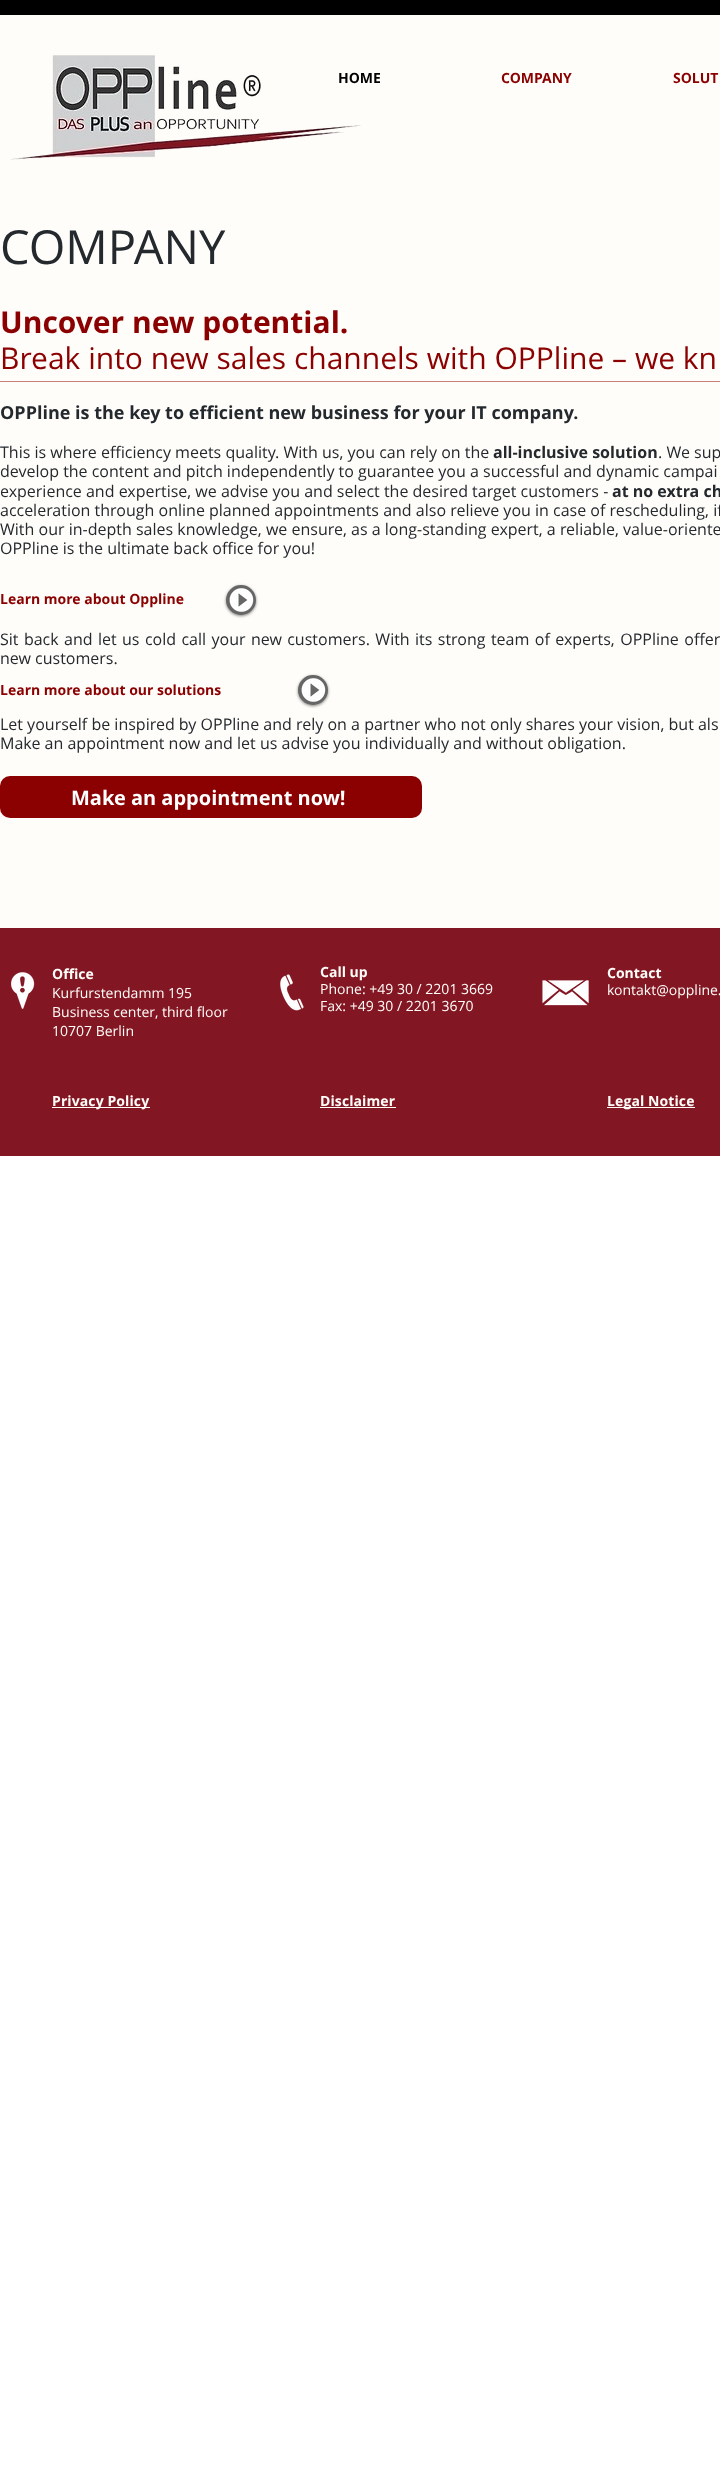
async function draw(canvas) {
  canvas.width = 720
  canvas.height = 2469
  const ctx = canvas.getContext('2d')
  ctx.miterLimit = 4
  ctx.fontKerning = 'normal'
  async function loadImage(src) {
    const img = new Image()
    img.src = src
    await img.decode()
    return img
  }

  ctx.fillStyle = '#fff'
  ctx.fillRect(0, 0, 720, 2469)
  ctx.fillStyle = '#fffdf9'
  ctx.fillRect(0, 15, 720, 913)
  ctx.fillStyle = '#000'
  ctx.fillRect(0, 0, 720, 15)
  ctx.font = 'bold 14px Open Sans'
  ctx.fillText('HOME', 338, 83)
  ctx.drawImage(await loadImage('image0.png'), 11, 55, 350, 105)
  ctx.fillStyle = '#8b0000'
  ctx.fillText('COMPANY', 501, 83)
  ctx.fillText('SOLUT', 673, 83)
  ctx.font = '47px Open Sans'
  ctx.fillStyle = '#24292e'
  ctx.fillText('COMPANY', 0, 264)
  ctx.font = 'bold 30px Open Sans'
  ctx.fillStyle = '#8b0000'
  ctx.fillText('Uncover new potential.', 0, 333)
  ctx.font = '30px Open Sans'
  ctx.fillText('Break into new sales channels with OPPline – we kn', 0, 369)
  ctx.fillStyle = '#c57f7d'
  ctx.fillRect(0, 381, 720, 1)
  ctx.font = 'bold 18px Open Sans'
  ctx.fillStyle = '#24292e'
  ctx.fillText('OPPline is the key to efficient new business for your IT company.', 0, 419)
  ctx.font = '16px Open Sans'
  ctx.fillText('This is where efficiency meets quality. With us, you can rely on the', 0, 458)
  ctx.font = 'bold 16px Open Sans'
  ctx.fillText('all-inclusive solution', 493, 458)
  ctx.font = '16px Open Sans'
  ctx.fillText('. We sup', 658, 458)
  ctx.fillText('develop the content and pitch independently to guarantee you a successful and dynamic campai', 0, 477)
  ctx.fillText('experience and expertise, we advise you and select the desired target customers -', 0, 497)
  ctx.font = 'bold 16px Open Sans'
  ctx.fillText('at no extra ch', 612, 497)
  ctx.font = '16px Open Sans'
  ctx.fillText('acceleration through online planned appointments and also relieve you in case of rescheduling, if', 0, 516)
  ctx.fillText('With our in-depth sales knowledge, we ensure, as a long-standing expert, a reliable, value-oriente', 0, 535)
  ctx.fillText('OPPline is the ultimate back office for you!', 0, 554)
  ctx.font = 'bold 14px Open Sans'
  ctx.fillStyle = '#8b0000'
  ctx.fillText('Learn more about Oppline', 0, 604)
  ctx.fillStyle = '#00000080'
  ctx.filter = 'blur(1.5px)'
  ctx.beginPath()
  ctx.roundRect(226, 586, 30, 30, 15)
  ctx.fill()
  ctx.filter = 'none'
  ctx.fillStyle = '#666'
  ctx.beginPath()
  ctx.arc(241, 600, 14, 0, 2 * Math.PI)
  ctx.fill()
  ctx.strokeStyle = '#666'
  ctx.lineWidth = 2
  ctx.stroke()
  ctx.drawImage(await loadImage('image1.png'), 229, 588, 25, 24)
  ctx.wordSpacing = '1.25px'
  ctx.font = '16px Open Sans'
  ctx.fillStyle = '#24292e'
  ctx.fillText('Sit back and let us cold call your new customers. With its strong team of experts, OPPline offer', 0, 645)
  ctx.wordSpacing = '0px'
  ctx.fillText('new customers.', 0, 664)
  ctx.font = 'bold 14px Open Sans'
  ctx.fillStyle = '#8b0000'
  ctx.fillText('Learn more about our solutions', 0, 695)
  ctx.fillStyle = '#00000080'
  ctx.filter = 'blur(1.5px)'
  ctx.beginPath()
  ctx.roundRect(298, 676, 30, 30, 15)
  ctx.fill()
  ctx.filter = 'none'
  ctx.fillStyle = '#666'
  ctx.beginPath()
  ctx.arc(313, 690, 14, 0, 2 * Math.PI)
  ctx.fill()
  ctx.stroke()
  ctx.drawImage(await loadImage('image1.png'), 301, 678, 25, 24)
  ctx.font = '16px Open Sans'
  ctx.fillStyle = '#24292e'
  ctx.fillText('Let yourself be inspired by OPPline and rely on a partner who not only shares your vision, but als', 0, 730)
  ctx.fillText('Make an appointment now and let us advise you individually and without obligation.', 0, 749)
  ctx.fillStyle = '#8b0000'
  ctx.beginPath()
  ctx.roundRect(0, 776, 422, 42, 10)
  ctx.fill()
  ctx.font = 'bold 20px Open Sans'
  ctx.fillStyle = '#fff'
  ctx.fillText('Make an appointment now!', 71, 805)
  ctx.fillStyle = '#831623'
  ctx.fillRect(0, 928, 720, 228)
  ctx.drawImage(await loadImage('image2.png'), 11, 972, 24, 37)
  ctx.font = 'bold 14px Open Sans'
  ctx.fillStyle = '#fffdf9'
  ctx.fillText('Office', 52, 979)
  ctx.font = '14px Open Sans'
  ctx.fillText('Kurfurstendamm 195', 52, 998)
  ctx.fillText('Business center, third floor', 52, 1017)
  ctx.fillText('10707 Berlin', 52, 1036)
  ctx.drawImage(await loadImage('image3.png'), 280, 974, 24, 37)
  ctx.font = 'bold 14px Open Sans'
  ctx.fillText('Call up', 320, 977)
  ctx.font = '14px Open Sans'
  ctx.fillText('Phone: +49 30 / 2201 3669', 320, 994)
  ctx.fillText('Fax: +49 30 / 2201 3670', 320, 1011)
  ctx.drawImage(await loadImage('image4.png'), 542, 980, 47, 26)
  ctx.font = 'bold 14px Open Sans'
  ctx.fillText('Contact', 607, 978)
  ctx.font = '14px Open Sans'
  ctx.fillText('kontakt@oppline.', 607, 995)
  ctx.fillRect(52, 1107, 98, 1)
  ctx.letterSpacing = '0.1px'
  ctx.font = 'bold 14px Open Sans'
  ctx.fillText('Privacy Policy', 52, 1106)
  ctx.fillText('Disclaimer', 320, 1106)
  ctx.fillRect(320, 1107, 76, 1)
  ctx.fillRect(607, 1107, 88, 1)
  ctx.fillText('Legal Notice', 607, 1106)
}

draw(document.querySelector('canvas'))
